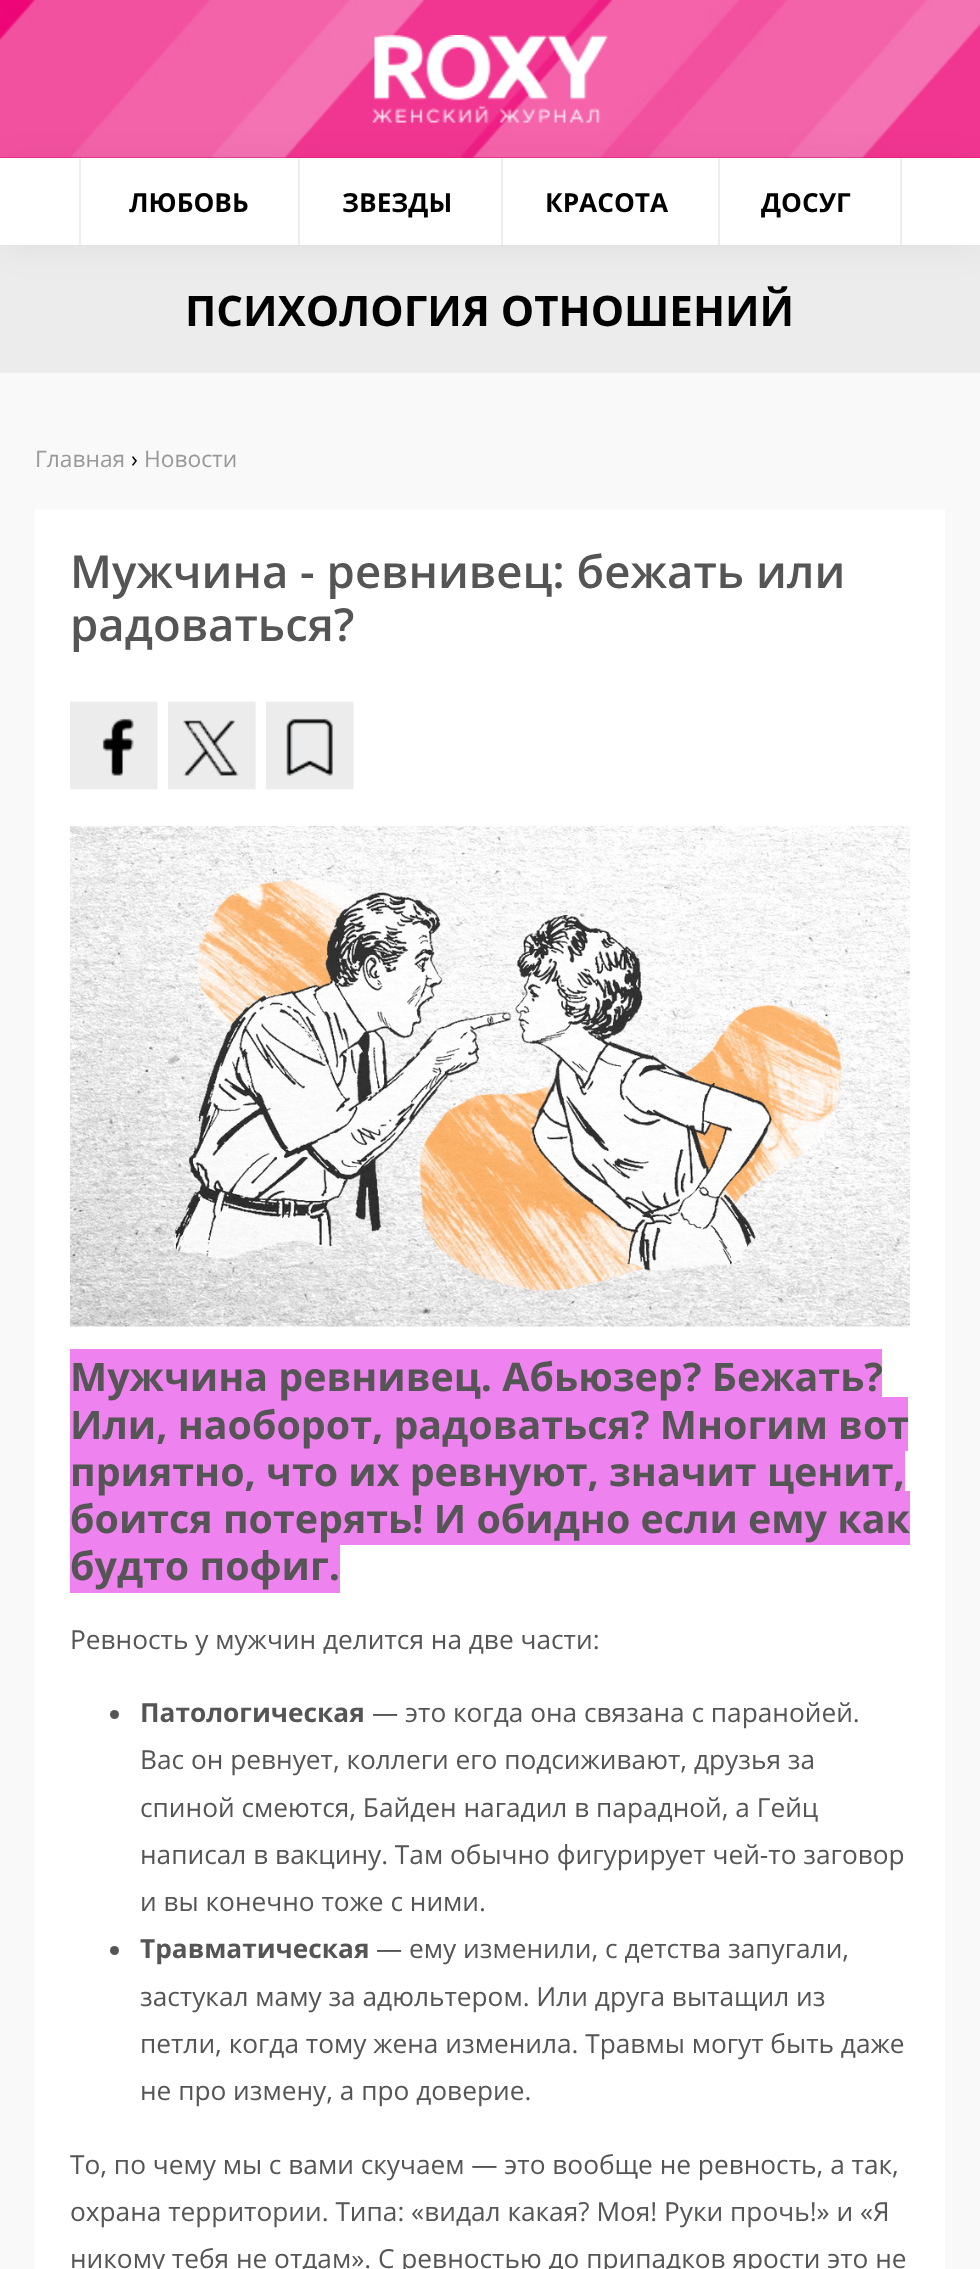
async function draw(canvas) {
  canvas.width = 980
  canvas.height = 2269
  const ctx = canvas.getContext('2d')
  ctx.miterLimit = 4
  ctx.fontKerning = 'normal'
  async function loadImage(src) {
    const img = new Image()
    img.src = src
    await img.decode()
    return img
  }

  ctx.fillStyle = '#f9f9f9'
  ctx.fillRect(0, 0, 980, 2269)
  ctx.fillStyle = '#ed0677'
  ctx.fillRect(0, 157, 980, 1)
  ctx.drawImage(await loadImage('image0.png'), 0, 0, 980, 158)
  ctx.drawImage(await loadImage('image1.png'), 372, 35, 236, 88)
  ctx.fillStyle = '#0000000d'
  ctx.filter = 'blur(17.5px)'
  ctx.beginPath()
  ctx.rect(0, 161, 980, 88)
  ctx.fill()
  ctx.filter = 'none'
  ctx.fillStyle = '#fff'
  ctx.fillRect(0, 158, 980, 87)
  ctx.fillStyle = '#eee'
  ctx.fillRect(298, 158, 2, 87)
  ctx.fillRect(79, 158, 2, 87)
  ctx.font = 'bold 26.25px Open Sans'
  ctx.fillStyle = '#000'
  ctx.fillText('ЛЮБОВЬ', 129, 212)
  ctx.fillStyle = '#eee'
  ctx.fillRect(501, 158, 2, 87)
  ctx.fillStyle = '#000'
  ctx.fillText('ЗВЕЗДЫ', 342, 212)
  ctx.fillStyle = '#eee'
  ctx.fillRect(718, 158, 2, 87)
  ctx.fillStyle = '#000'
  ctx.fillText('КРАСОТА', 545, 212)
  ctx.fillStyle = '#eee'
  ctx.fillRect(900, 158, 2, 87)
  ctx.fillStyle = '#000'
  ctx.fillText('ДОСУГ', 761, 212)
  ctx.fillStyle = '#0000000d'
  ctx.fillRect(0, 245, 980, 128)
  ctx.font = 'bold 42px Open Sans'
  ctx.fillStyle = '#000'
  ctx.fillText('ПСИХОЛОГИЯ ОТНОШЕНИЙ', 185, 326)
  ctx.font = '22.75px Open Sans'
  ctx.fillStyle = '#999'
  ctx.fillText('Главная', 35, 467)
  ctx.fillStyle = '#000'
  ctx.fillText('›', 131, 467)
  ctx.fillStyle = '#999'
  ctx.fillText('Новости', 144, 467)
  ctx.fillStyle = '#fff'
  ctx.fillRect(35, 509, 910, 1760)
  ctx.font = '600 45.5px Open Sans'
  ctx.fillStyle = '#555'
  ctx.fillText('Мужчина - ревнивец: бежать или', 70, 588)
  ctx.fillText('радоваться?', 70, 641)
  ctx.drawImage(await loadImage('image2.png'), 70, 701, 88, 89)
  ctx.drawImage(await loadImage('image3.png'), 168, 701, 88, 89)
  ctx.drawImage(await loadImage('image4.png'), 266, 701, 88, 89)
  ctx.drawImage(await loadImage('image5.png'), 70, 826, 840, 501)
  ctx.fillStyle = '#ee82ee'
  ctx.fillRect(70, 1349, 812, 48)
  ctx.fillRect(70, 1397, 838, 54)
  ctx.font = 'bold 39.4px Open Sans'
  ctx.fillStyle = '#555'
  ctx.fillText('Мужчина ревнивец. Абьюзер? Бежать?', 70, 1391)
  ctx.fillText('Или, наоборот, радоваться? Многим вот', 70, 1439)
  ctx.fillStyle = '#ee82ee'
  ctx.fillRect(70, 1451, 835, 40)
  ctx.fillRect(70, 1491, 840, 54)
  ctx.fillStyle = '#555'
  ctx.fillText('приятно, что их ревнуют, значит ценит,', 70, 1486)
  ctx.fillText('боится потерять! И обидно если ему как', 70, 1533)
  ctx.fillStyle = '#ee82ee'
  ctx.fillRect(70, 1545, 270, 48)
  ctx.fillStyle = '#555'
  ctx.fillText('будто пофиг.', 70, 1580)
  ctx.font = '26.25px Open Sans'
  ctx.fillText('Ревность у мужчин делится на две части:', 70, 1649)
  ctx.beginPath()
  ctx.arc(114.5, 1714.5, 4.5, 0, 2 * Math.PI)
  ctx.fill()
  ctx.font = 'bold 26.25px Open Sans'
  ctx.fillText('Патологическая', 140, 1722)
  ctx.font = '26.25px Open Sans'
  ctx.fillText('— это когда она связана с паранойей.', 372, 1722)
  ctx.fillText('Вас он ревнует, коллеги его подсиживают, друзья за', 140, 1769)
  ctx.fillText('спиной смеются, Байден нагадил в парадной, а Гейц', 140, 1817)
  ctx.fillText('написал в вакцину. Там обычно фигурирует чей-то заговор', 140, 1864)
  ctx.fillText('и вы конечно тоже с ними.', 140, 1911)
  ctx.beginPath()
  ctx.arc(114.5, 1950.5, 4.5, 0, 2 * Math.PI)
  ctx.fill()
  ctx.font = 'bold 26.25px Open Sans'
  ctx.fillText('Травматическая', 140, 1958)
  ctx.font = '26.25px Open Sans'
  ctx.fillText('— ему изменили, с детства запугали,', 376, 1958)
  ctx.fillText('застукал маму за адюльтером. Или друга вытащил из', 140, 2006)
  ctx.fillText('петли, когда тому жена изменила. Травмы могут быть даже', 140, 2053)
  ctx.fillText('не про измену, а про доверие.', 140, 2100)
  ctx.fillText('То, по чему мы с вами скучаем — это вообще не ревность, а так,', 70, 2174)
  ctx.fillText('охрана территории. Типа: «видал какая? Моя! Руки прочь!» и «Я', 70, 2221)
  ctx.fillText('никому тебя не отдам». С ревностью до припадков ярости это не', 70, 2268)
}

draw(document.querySelector('canvas'))
